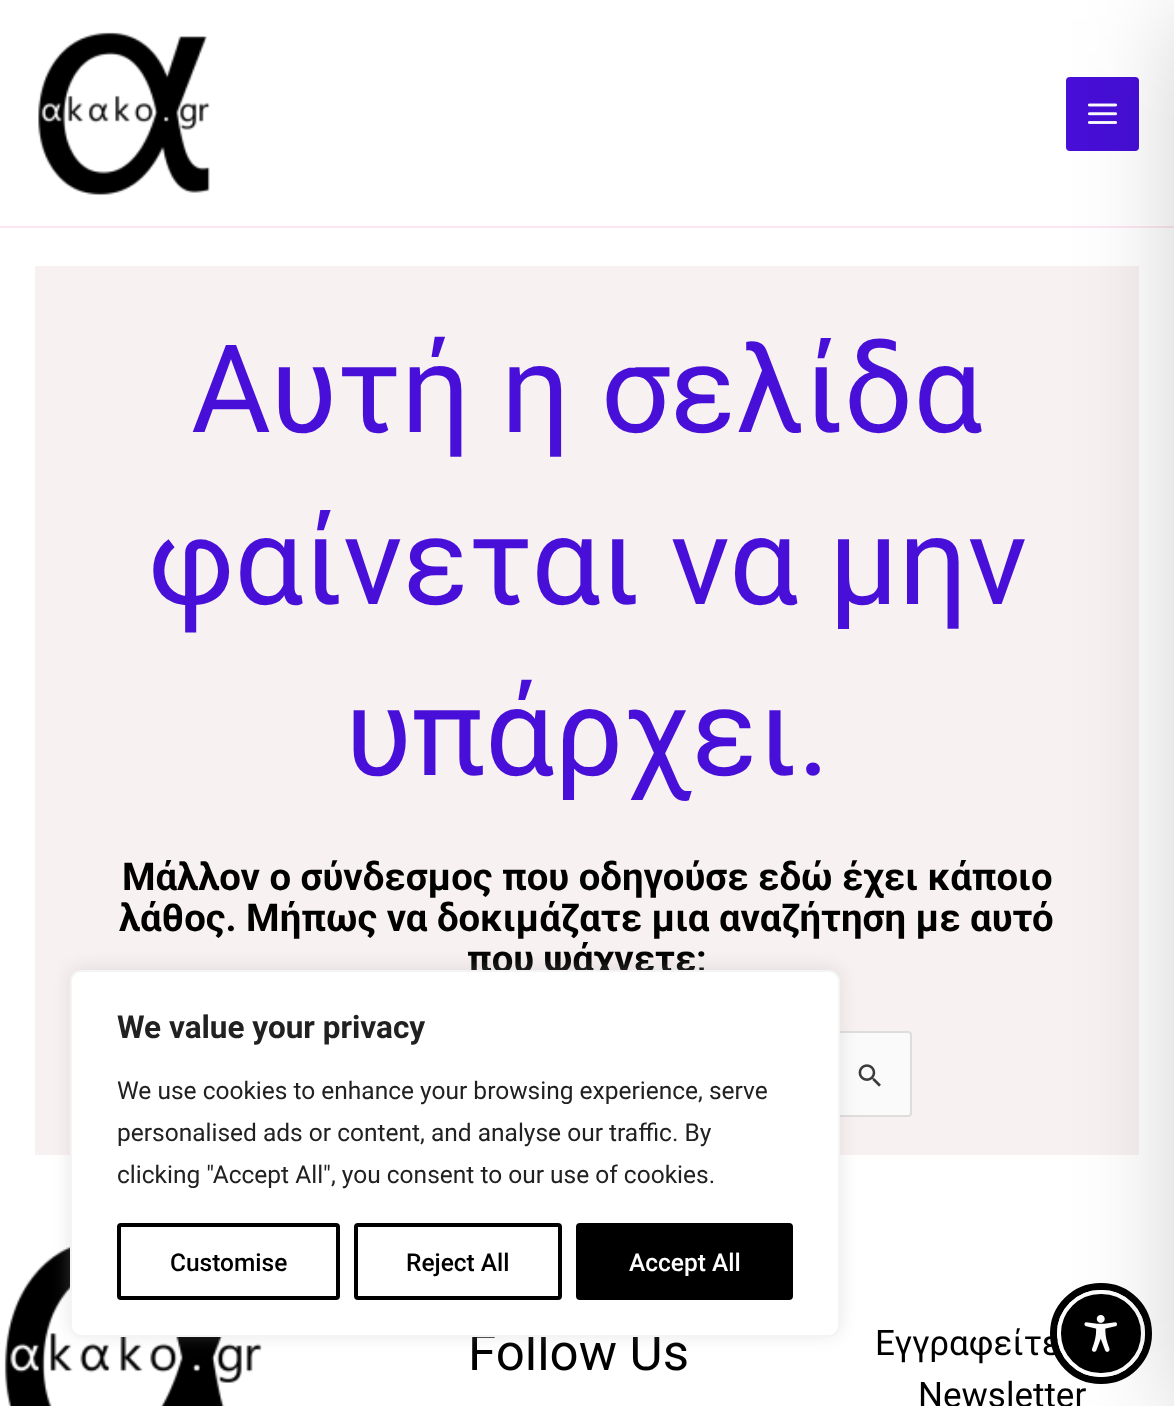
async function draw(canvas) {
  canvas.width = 1174
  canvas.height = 1406
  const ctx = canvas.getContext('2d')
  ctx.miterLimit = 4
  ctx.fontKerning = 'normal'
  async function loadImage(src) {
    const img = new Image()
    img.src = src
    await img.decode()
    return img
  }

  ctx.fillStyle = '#fff'
  ctx.fillRect(0, 0, 1174, 1406)
  ctx.fillStyle = '#fde6f1'
  ctx.fillRect(0, 226, 1174, 2)
  ctx.drawImage(await loadImage('image0.png'), 38, 32, 172, 164)
  ctx.fillStyle = '#470fd7'
  ctx.beginPath()
  ctx.roundRect(1066, 77, 73, 74, 4)
  ctx.fill()
  ctx.drawImage(await loadImage('image1.png'), 1087, 103, 31, 21)
  ctx.fillStyle = '#f8f1f1'
  ctx.fillRect(35, 266, 1104, 889)
  ctx.font = '122.5px Roboto'
  ctx.fillStyle = '#470fd7'
  ctx.fillText('Αυτή η σελίδα', 191, 432)
  ctx.fillText('φαίνεται να μην', 148, 604)
  ctx.fillText('υπάρχει.', 345, 775)
  ctx.font = 'bold 38.3px Roboto'
  ctx.fillStyle = '#000'
  ctx.fillText('Μάλλον ο σύνδεσμος που οδηγούσε εδώ έχει κάποιο', 122, 890)
  ctx.fillText('λάθος. Μήπως να δοκιμάζατε μια αναζήτηση με αυτό', 119, 931)
  ctx.fillText('που ψάχνετε;', 467, 972)
  ctx.fillStyle = '#fafafa'
  ctx.beginPath()
  ctx.roundRect(265, 1032, 646, 84, 3)
  ctx.fill()
  ctx.strokeStyle = '#ddd'
  ctx.lineWidth = 2
  ctx.stroke()
  ctx.drawImage(await loadImage('image2.png'), 858, 1064, 23, 23)
  ctx.drawImage(await loadImage('image3.png'), 4, 1246, 258, 160)
  ctx.font = '51px Roboto'
  ctx.fillStyle = '#000'
  ctx.fillText('Follow Us', 468, 1370)
  ctx.font = '35px Roboto'
  ctx.fillText('Εγγραφείτε', 875, 1355)
  ctx.fillText('Newsletter', 918, 1407)
  ctx.beginPath()
  ctx.roundRect(1053.5, 1286.5, 95, 94, 47)
  ctx.strokeStyle = '#000'
  ctx.lineWidth = 7
  ctx.stroke()
  ctx.beginPath()
  ctx.roundRect(1059, 1292, 84, 83, 41.5)
  ctx.fill()
  ctx.strokeStyle = '#fff'
  ctx.lineWidth = 4
  ctx.stroke()
  ctx.drawImage(await loadImage('image4.png'), 1084, 1315, 33, 37)
  ctx.fillStyle = '#00000033'
  ctx.filter = 'blur(52.5px)'
  ctx.beginPath()
  ctx.rect(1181, 18, 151, 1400)
  ctx.fill()
  ctx.filter = 'none'
  ctx.fillStyle = '#acabab4d'
  ctx.filter = 'blur(9px)'
  ctx.beginPath()
  ctx.roundRect(70, 968, 770, 367, 11)
  ctx.fill()
  ctx.filter = 'none'
  ctx.fillStyle = '#fff'
  ctx.beginPath()
  ctx.roundRect(71, 971, 768, 365, 10)
  ctx.fill()
  ctx.strokeStyle = '#f4f4f4'
  ctx.lineWidth = 2
  ctx.stroke()
  ctx.font = 'bold 31.5px Roboto'
  ctx.fillStyle = '#212121'
  ctx.fillText('We value your privacy', 117, 1038)
  ctx.font = '24.5px Roboto'
  ctx.fillText('We use cookies to enhance your browsing experience, serve', 117, 1099)
  ctx.fillText('personalised ads or content, and analyse our traffic. By', 117, 1141)
  ctx.fillText('clicking "Accept All", you consent to our use of cookies.', 117, 1183)
  ctx.beginPath()
  ctx.roundRect(119, 1225, 219, 73, 2)
  ctx.strokeStyle = '#000'
  ctx.lineWidth = 4
  ctx.stroke()
  ctx.font = '500 24.5px Roboto'
  ctx.fillStyle = '#000'
  ctx.fillText('Customise', 170, 1271)
  ctx.beginPath()
  ctx.roundRect(356, 1225, 204, 73, 2)
  ctx.stroke()
  ctx.fillText('Reject All', 406, 1271)
  ctx.beginPath()
  ctx.roundRect(578, 1225, 213, 73, 2)
  ctx.fill()
  ctx.stroke()
  ctx.fillStyle = '#fff'
  ctx.fillText('Accept All', 629, 1271)
}

draw(document.querySelector('canvas'))
